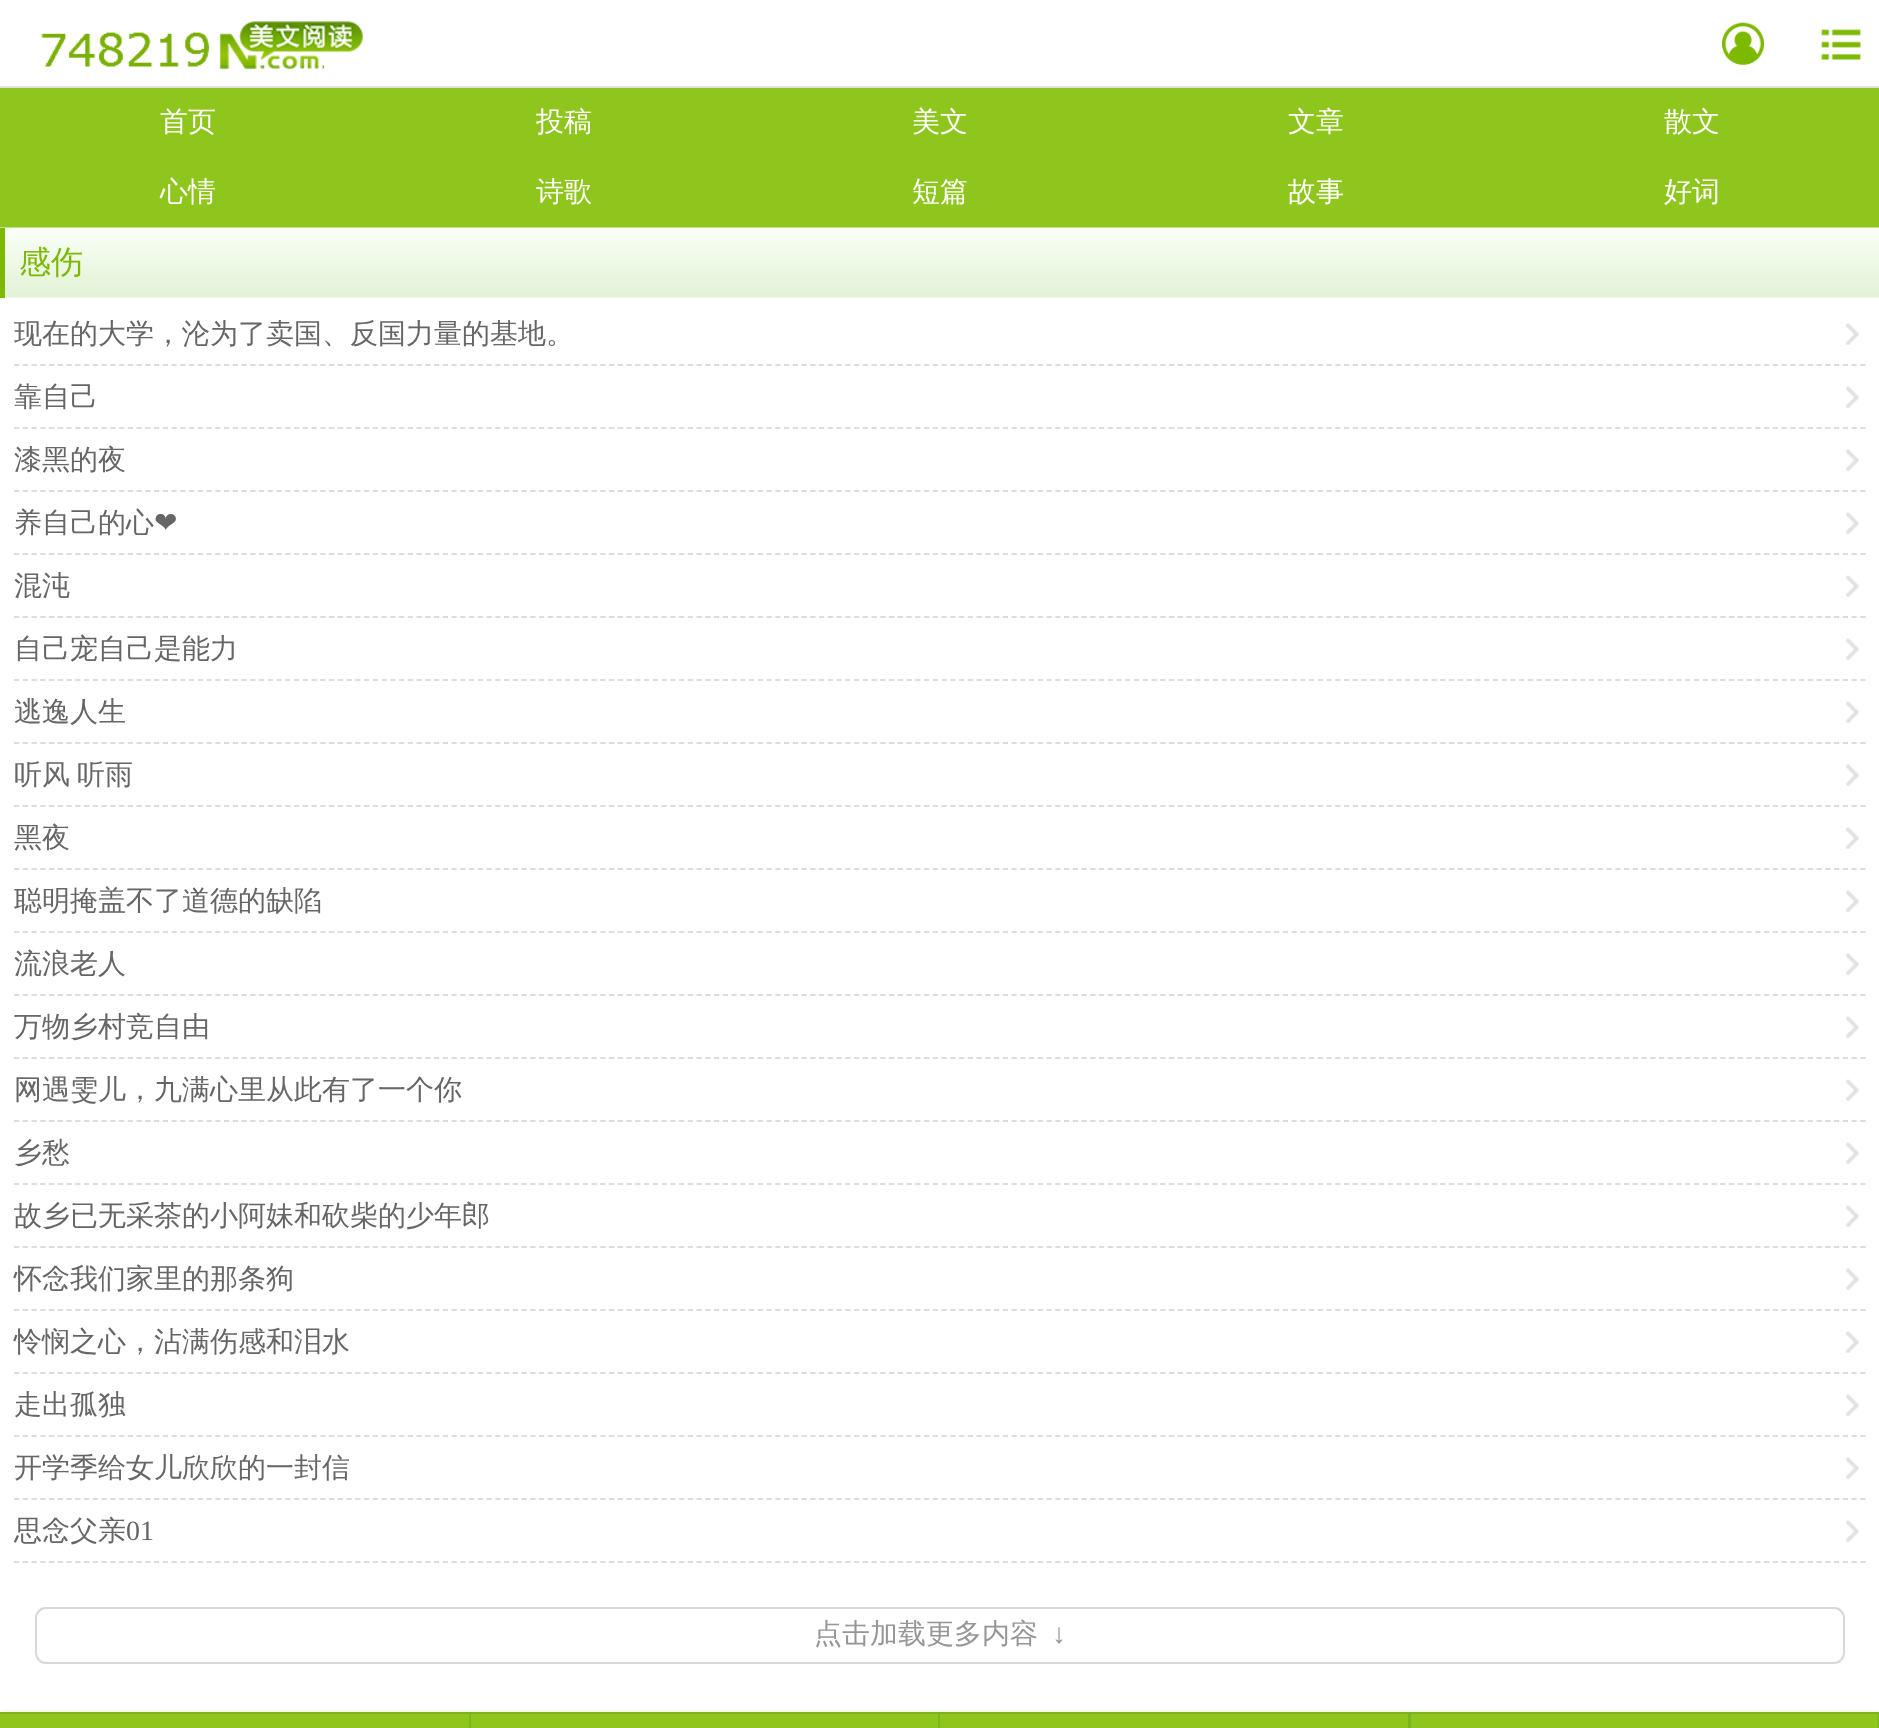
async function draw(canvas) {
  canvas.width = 1879
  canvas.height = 1728
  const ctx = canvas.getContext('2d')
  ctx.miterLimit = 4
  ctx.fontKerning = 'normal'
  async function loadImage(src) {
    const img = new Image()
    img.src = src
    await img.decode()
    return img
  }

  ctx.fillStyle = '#fff'
  ctx.fillRect(0, 0, 1879, 1728)
  ctx.fillStyle = '#e2e2e2'
  ctx.fillRect(0, 86, 1879, 2)
  ctx.drawImage(await loadImage('image0.png'), 41, 21, 322, 49)
  ctx.drawImage(await loadImage('image1.png'), 1722, 22, 42, 43)
  ctx.drawImage(await loadImage('image2.png'), 1821, 29, 40, 31)
  ctx.fillStyle = '#8ec61d'
  ctx.fillRect(0, 88, 1879, 140)
  ctx.font = '500 28px WenQuanYi Zen Hei'
  ctx.fillStyle = '#fff'
  ctx.fillText('首页', 160, 131)
  ctx.fillText('投稿', 536, 131)
  ctx.fillText('美文', 912, 131)
  ctx.fillText('文章', 1288, 131)
  ctx.fillText('散文', 1664, 131)
  ctx.fillText('心情', 160, 201)
  ctx.fillText('诗歌', 536, 201)
  ctx.fillText('短篇', 912, 201)
  ctx.fillText('故事', 1288, 201)
  ctx.fillText('好词', 1664, 201)
  ctx.drawImage(await loadImage('image3.png'), 0, 227, 1879, 71)
  ctx.fillStyle = '#7cb900'
  ctx.fillRect(0, 228, 5, 70)
  ctx.font = '500 32px WenQuanYi Zen Hei'
  ctx.fillText('感伤', 19, 273)
  ctx.drawImage(await loadImage('image4.png'), 1846, 323, 13, 22)
  ctx.beginPath()
  ctx.moveTo(14, 365)
  ctx.lineTo(1865.5, 365)
  ctx.strokeStyle = '#ddd'
  ctx.lineWidth = 1.8
  ctx.setLineDash([5.25, 3.5])
  ctx.stroke()
  ctx.font = '500 28px WenQuanYi Zen Hei'
  ctx.fillStyle = '#666'
  ctx.fillText('现在的大学，沦为了卖国、反国力量的基地。', 14, 343)
  ctx.drawImage(await loadImage('image4.png'), 1846, 386, 13, 22)
  ctx.beginPath()
  ctx.moveTo(14, 428)
  ctx.lineTo(1865.5, 428)
  ctx.stroke()
  ctx.fillText('靠自己', 14, 406)
  ctx.drawImage(await loadImage('image4.png'), 1846, 449, 13, 22)
  ctx.beginPath()
  ctx.moveTo(14, 491)
  ctx.lineTo(1865.5, 491)
  ctx.stroke()
  ctx.fillText('漆黑的夜', 14, 469)
  ctx.drawImage(await loadImage('image4.png'), 1846, 512, 13, 22)
  ctx.beginPath()
  ctx.moveTo(14, 554)
  ctx.lineTo(1865.5, 554)
  ctx.stroke()
  ctx.fillText('养自己的心', 14, 532)
  ctx.font = '28px DejaVu Sans'
  ctx.fillText('❤', 154, 532)
  ctx.drawImage(await loadImage('image4.png'), 1846, 575, 13, 22)
  ctx.beginPath()
  ctx.moveTo(14, 617)
  ctx.lineTo(1865.5, 617)
  ctx.stroke()
  ctx.font = '500 28px WenQuanYi Zen Hei'
  ctx.fillText('混沌', 14, 595)
  ctx.drawImage(await loadImage('image4.png'), 1846, 638, 13, 22)
  ctx.beginPath()
  ctx.moveTo(14, 680)
  ctx.lineTo(1865.5, 680)
  ctx.stroke()
  ctx.fillText('自己宠自己是能力', 14, 658)
  ctx.drawImage(await loadImage('image4.png'), 1846, 701, 13, 22)
  ctx.beginPath()
  ctx.moveTo(14, 743)
  ctx.lineTo(1865.5, 743)
  ctx.stroke()
  ctx.fillText('逃逸人生', 14, 721)
  ctx.drawImage(await loadImage('image4.png'), 1846, 764, 13, 22)
  ctx.beginPath()
  ctx.moveTo(14, 806)
  ctx.lineTo(1865.5, 806)
  ctx.stroke()
  ctx.fillText('听风', 14, 784)
  ctx.fillText('听雨', 77, 784)
  ctx.drawImage(await loadImage('image4.png'), 1846, 827, 13, 22)
  ctx.beginPath()
  ctx.moveTo(14, 869)
  ctx.lineTo(1865.5, 869)
  ctx.stroke()
  ctx.fillText('黑夜', 14, 847)
  ctx.drawImage(await loadImage('image4.png'), 1846, 890, 13, 22)
  ctx.beginPath()
  ctx.moveTo(14, 932)
  ctx.lineTo(1865.5, 932)
  ctx.stroke()
  ctx.fillText('聪明掩盖不了道德的缺陷', 14, 910)
  ctx.drawImage(await loadImage('image4.png'), 1846, 953, 13, 22)
  ctx.beginPath()
  ctx.moveTo(14, 995)
  ctx.lineTo(1865.5, 995)
  ctx.stroke()
  ctx.fillText('流浪老人', 14, 973)
  ctx.drawImage(await loadImage('image4.png'), 1846, 1016, 13, 22)
  ctx.beginPath()
  ctx.moveTo(14, 1058)
  ctx.lineTo(1865.5, 1058)
  ctx.stroke()
  ctx.fillText('万物乡村竞自由', 14, 1036)
  ctx.drawImage(await loadImage('image4.png'), 1846, 1079, 13, 22)
  ctx.beginPath()
  ctx.moveTo(14, 1121)
  ctx.lineTo(1865.5, 1121)
  ctx.stroke()
  ctx.fillText('网遇雯儿，九满心里从此有了一个你', 14, 1099)
  ctx.drawImage(await loadImage('image4.png'), 1846, 1142, 13, 22)
  ctx.beginPath()
  ctx.moveTo(14, 1184)
  ctx.lineTo(1865.5, 1184)
  ctx.stroke()
  ctx.fillText('乡愁', 14, 1162)
  ctx.drawImage(await loadImage('image4.png'), 1846, 1205, 13, 22)
  ctx.beginPath()
  ctx.moveTo(14, 1247)
  ctx.lineTo(1865.5, 1247)
  ctx.stroke()
  ctx.fillText('故乡已无采茶的小阿妹和砍柴的少年郎', 14, 1225)
  ctx.drawImage(await loadImage('image4.png'), 1846, 1268, 13, 22)
  ctx.beginPath()
  ctx.moveTo(14, 1310)
  ctx.lineTo(1865.5, 1310)
  ctx.stroke()
  ctx.fillText('怀念我们家里的那条狗', 14, 1288)
  ctx.drawImage(await loadImage('image4.png'), 1846, 1331, 13, 22)
  ctx.beginPath()
  ctx.moveTo(14, 1373)
  ctx.lineTo(1865.5, 1373)
  ctx.stroke()
  ctx.fillText('怜悯之心，沾满伤感和泪水', 14, 1351)
  ctx.drawImage(await loadImage('image4.png'), 1846, 1394, 13, 22)
  ctx.beginPath()
  ctx.moveTo(14, 1436)
  ctx.lineTo(1865.5, 1436)
  ctx.stroke()
  ctx.fillText('走出孤独', 14, 1414)
  ctx.drawImage(await loadImage('image4.png'), 1846, 1457, 13, 22)
  ctx.beginPath()
  ctx.moveTo(14, 1499)
  ctx.lineTo(1865.5, 1499)
  ctx.stroke()
  ctx.fillText('开学季给女儿欣欣的一封信', 14, 1477)
  ctx.drawImage(await loadImage('image4.png'), 1846, 1520, 13, 22)
  ctx.beginPath()
  ctx.moveTo(14, 1562)
  ctx.lineTo(1865.5, 1562)
  ctx.stroke()
  ctx.fillText('思念父亲', 14, 1540)
  ctx.font = '28px Liberation Serif'
  ctx.fillText('01', 126, 1540)
  ctx.beginPath()
  ctx.roundRect(36, 1608, 1808, 55, 10)
  ctx.strokeStyle = '#d8d8d8'
  ctx.lineWidth = 2
  ctx.setLineDash([])
  ctx.stroke()
  ctx.font = '500 28px WenQuanYi Zen Hei'
  ctx.fillStyle = '#969696'
  ctx.fillText('点击加载更多内容', 814, 1643)
  ctx.font = '28px Liberation Serif'
  ctx.fillText('↓', 1052, 1643)
  ctx.fillStyle = '#8ec61d'
  ctx.fillRect(0, 1714, 1878, 14)
  ctx.save()
  ctx.beginPath()
  ctx.rect(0, 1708, 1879, 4)
  ctx.clip()
  ctx.fillStyle = '#81b31a'
  ctx.filter = 'blur(4.5px)'
  ctx.beginPath()
  ctx.rect(0, 1717, 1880, 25)
  ctx.fill()
  ctx.filter = 'none'
  ctx.restore()
  ctx.fillStyle = '#7cb21c'
  ctx.fillRect(0, 1712, 1879, 2)
  ctx.drawImage(await loadImage('image5.png'), 469, 1714, 2, 14)
  ctx.drawImage(await loadImage('image5.png'), 938, 1714, 2, 14)
  ctx.fillStyle = '#7bb321'
  ctx.fillRect(1408, 1714, 3, 14)
  ctx.drawImage(await loadImage('image6.png'), 1877, 1714, 2, 14)
}

draw(document.querySelector('canvas'))
